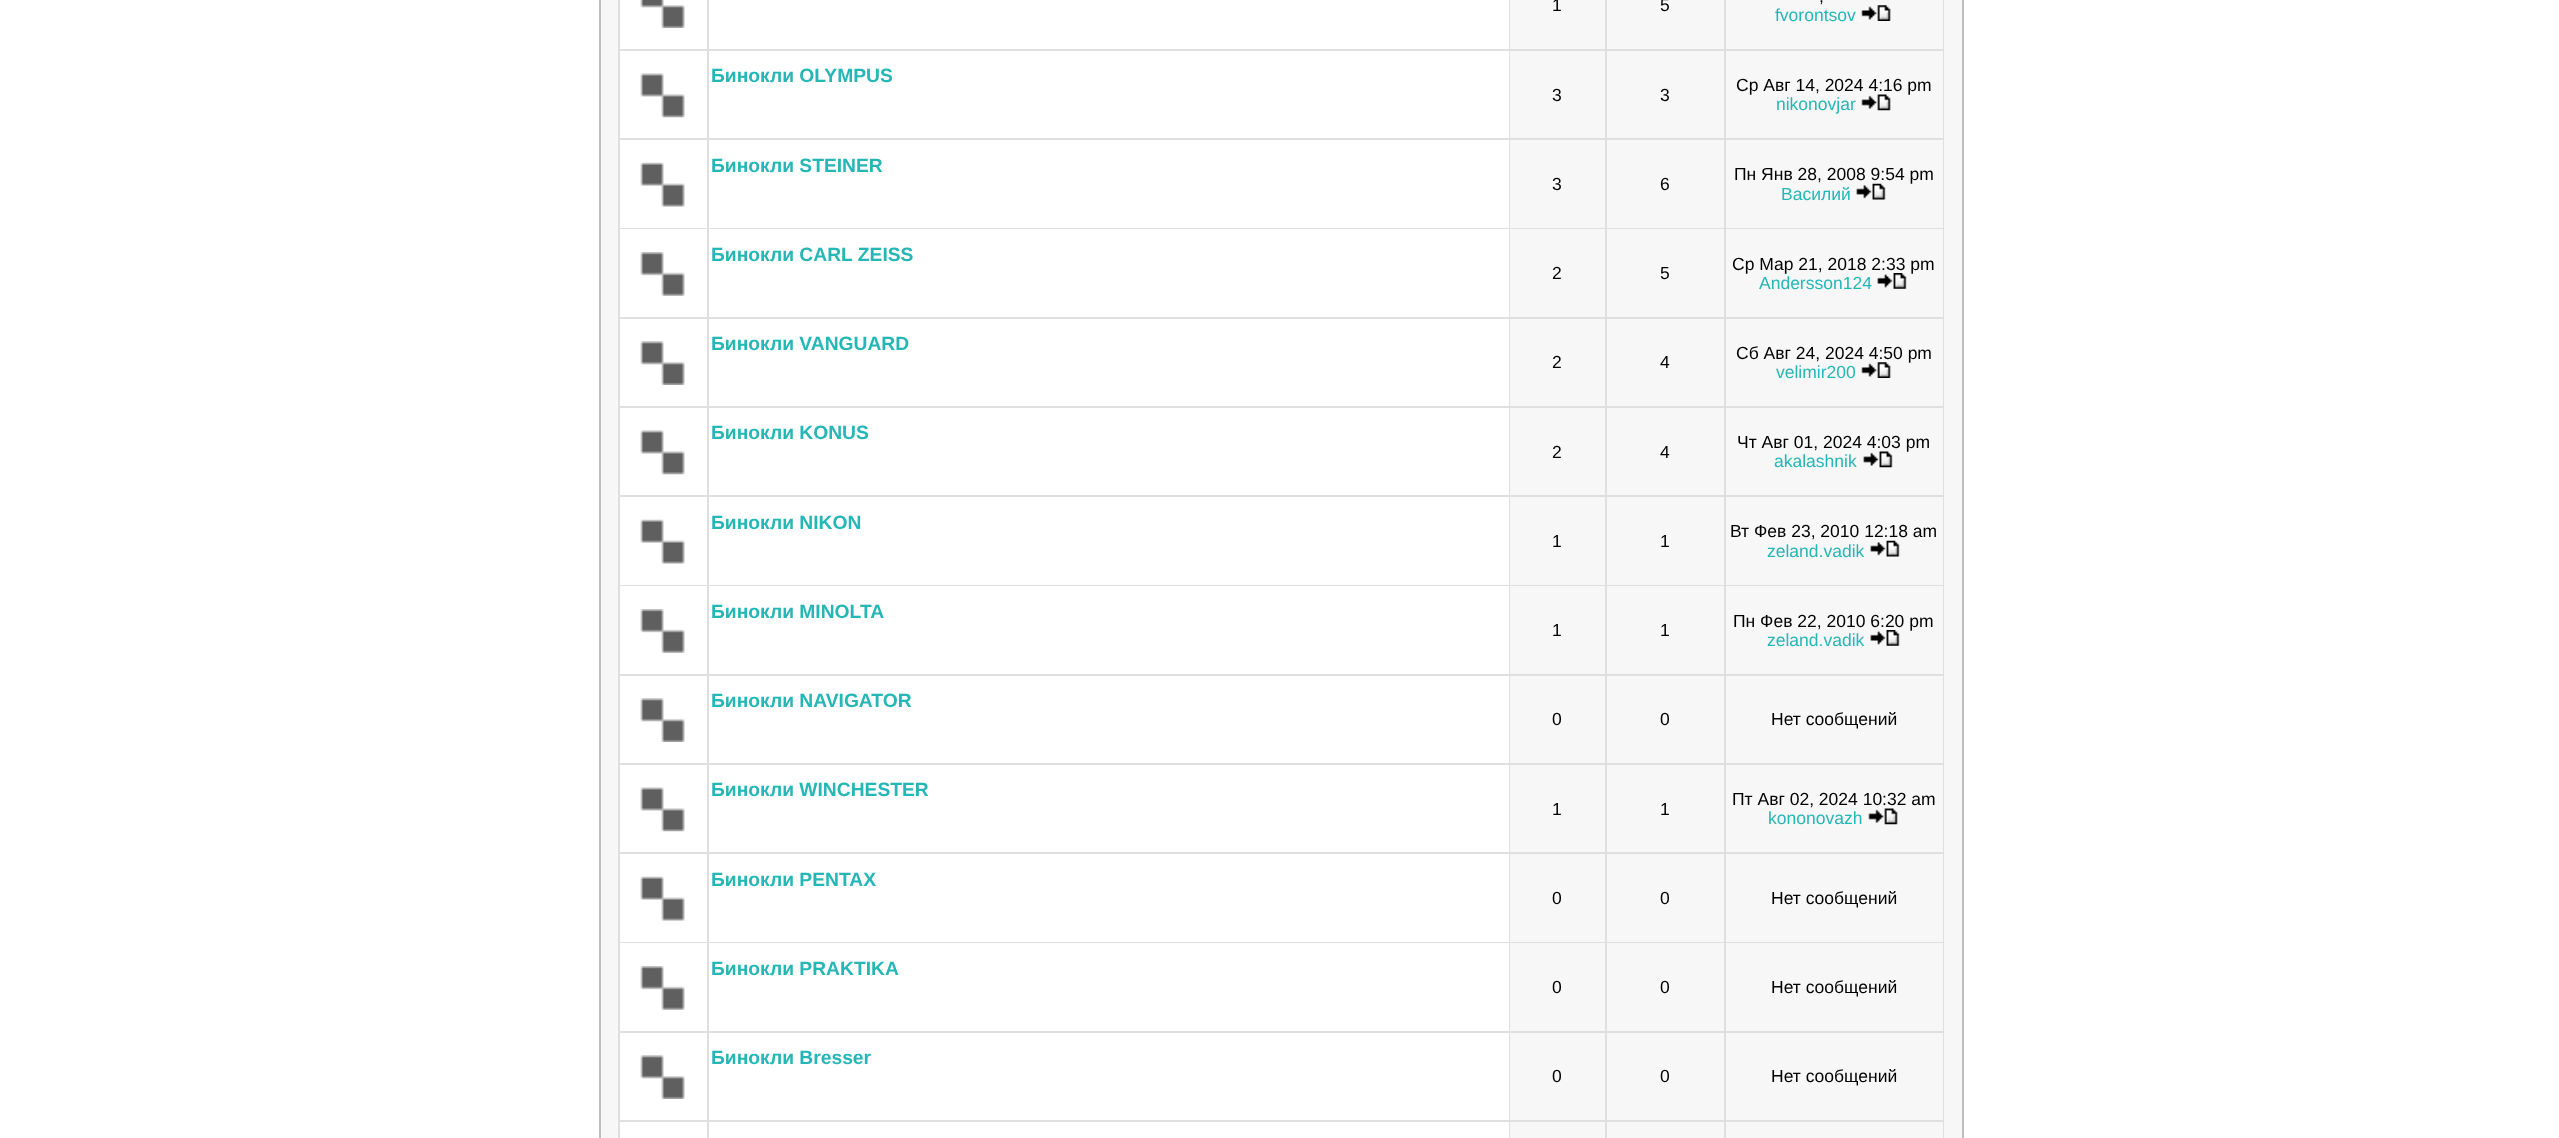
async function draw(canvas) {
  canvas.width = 2559
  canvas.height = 1138
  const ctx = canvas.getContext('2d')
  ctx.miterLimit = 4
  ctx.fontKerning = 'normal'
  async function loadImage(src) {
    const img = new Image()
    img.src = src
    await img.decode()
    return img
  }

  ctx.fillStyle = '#fff'
  ctx.fillRect(0, 0, 2559, 1138)
  ctx.fillStyle = '#f7f7f7'
  ctx.beginPath()
  ctx.rect(600, -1, 1363, 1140)
  ctx.fill()
  ctx.strokeStyle = '#bfbfbf'
  ctx.lineWidth = 2
  ctx.stroke()
  ctx.fillStyle = '#dfdfdf'
  ctx.fillRect(618, 0, 1326, 1138)
  ctx.fillStyle = '#fff'
  ctx.fillRect(620, 0, 87, 49)
  ctx.drawImage(await loadImage('image0.png'), 640, 0, 45, 28)
  ctx.fillRect(709, 0, 800, 49)
  ctx.fillStyle = '#f7f7f7'
  ctx.fillRect(1510, 0, 95, 49)
  ctx.font = '17.5px Liberation Sans'
  ctx.fillStyle = '#000'
  ctx.fillText('1', 1552, 11)
  ctx.fillStyle = '#f7f7f7'
  ctx.fillRect(1607, 0, 117, 49)
  ctx.fillStyle = '#000'
  ctx.fillText('5', 1660, 11)
  ctx.fillStyle = '#f7f7f7'
  ctx.fillRect(1726, 0, 217, 49)
  ctx.fillStyle = '#000'
  ctx.fillText(',', 1819, 2)
  ctx.fillStyle = '#25b6b6'
  ctx.fillText('fvorontsov', 1775, 21)
  ctx.drawImage(await loadImage('image1.png'), 1861, 5, 30, 16)
  ctx.fillStyle = '#fff'
  ctx.fillRect(620, 51, 87, 87)
  ctx.drawImage(await loadImage('image2.png'), 640, 73, 45, 45)
  ctx.fillRect(709, 51, 800, 87)
  ctx.font = 'bold 19.25px Liberation Sans'
  ctx.fillStyle = '#25b6b6'
  ctx.fillText('Бинокли OLYMPUS', 711, 82)
  ctx.fillStyle = '#f7f7f7'
  ctx.fillRect(1510, 51, 95, 87)
  ctx.font = '17.5px Liberation Sans'
  ctx.fillStyle = '#000'
  ctx.fillText('3', 1552, 101)
  ctx.fillStyle = '#f7f7f7'
  ctx.fillRect(1607, 51, 117, 87)
  ctx.fillStyle = '#000'
  ctx.fillText('3', 1660, 101)
  ctx.fillStyle = '#f7f7f7'
  ctx.fillRect(1726, 51, 217, 87)
  ctx.fillStyle = '#000'
  ctx.fillText('Ср Авг 14, 2024 4:16 pm', 1736, 91)
  ctx.fillStyle = '#25b6b6'
  ctx.fillText('nikonovjar', 1776, 110)
  ctx.drawImage(await loadImage('image3.png'), 1861, 94, 30, 17)
  ctx.fillStyle = '#fff'
  ctx.fillRect(620, 140, 87, 88)
  ctx.drawImage(await loadImage('image4.png'), 640, 162, 45, 45)
  ctx.fillRect(709, 140, 800, 88)
  ctx.font = 'bold 19.25px Liberation Sans'
  ctx.fillStyle = '#25b6b6'
  ctx.fillText('Бинокли STEINER', 711, 172)
  ctx.fillStyle = '#f7f7f7'
  ctx.fillRect(1510, 140, 95, 88)
  ctx.font = '17.5px Liberation Sans'
  ctx.fillStyle = '#000'
  ctx.fillText('3', 1552, 190)
  ctx.fillStyle = '#f7f7f7'
  ctx.fillRect(1607, 140, 117, 88)
  ctx.fillStyle = '#000'
  ctx.fillText('6', 1660, 190)
  ctx.fillStyle = '#f7f7f7'
  ctx.fillRect(1726, 140, 217, 88)
  ctx.fillStyle = '#000'
  ctx.fillText('Пн Янв 28, 2008 9:54 pm', 1734, 180)
  ctx.fillStyle = '#25b6b6'
  ctx.fillText('Василий', 1781, 200)
  ctx.drawImage(await loadImage('image5.png'), 1856, 183, 30, 17)
  ctx.fillStyle = '#fff'
  ctx.fillRect(620, 229, 87, 88)
  ctx.drawImage(await loadImage('image6.png'), 640, 252, 45, 44)
  ctx.fillRect(709, 229, 800, 88)
  ctx.font = 'bold 19.25px Liberation Sans'
  ctx.fillStyle = '#25b6b6'
  ctx.fillText('Бинокли CARL ZEISS', 711, 261)
  ctx.fillStyle = '#f7f7f7'
  ctx.fillRect(1510, 229, 95, 88)
  ctx.font = '17.5px Liberation Sans'
  ctx.fillStyle = '#000'
  ctx.fillText('2', 1552, 279)
  ctx.fillStyle = '#f7f7f7'
  ctx.fillRect(1607, 229, 117, 88)
  ctx.fillStyle = '#000'
  ctx.fillText('5', 1660, 279)
  ctx.fillStyle = '#f7f7f7'
  ctx.fillRect(1726, 229, 217, 88)
  ctx.fillStyle = '#000'
  ctx.fillText('Ср Мар 21, 2018 2:33 pm', 1732, 270)
  ctx.fillStyle = '#25b6b6'
  ctx.fillText('Andersson124', 1759, 289)
  ctx.drawImage(await loadImage('image7.png'), 1877, 273, 30, 16)
  ctx.fillStyle = '#fff'
  ctx.fillRect(620, 319, 87, 87)
  ctx.drawImage(await loadImage('image8.png'), 640, 341, 45, 44)
  ctx.fillRect(709, 319, 800, 87)
  ctx.font = 'bold 19.25px Liberation Sans'
  ctx.fillStyle = '#25b6b6'
  ctx.fillText('Бинокли VANGUARD', 711, 350)
  ctx.fillStyle = '#f7f7f7'
  ctx.fillRect(1510, 319, 95, 87)
  ctx.font = '17.5px Liberation Sans'
  ctx.fillStyle = '#000'
  ctx.fillText('2', 1552, 368)
  ctx.fillStyle = '#f7f7f7'
  ctx.fillRect(1607, 319, 117, 87)
  ctx.fillStyle = '#000'
  ctx.fillText('4', 1660, 368)
  ctx.fillStyle = '#f7f7f7'
  ctx.fillRect(1726, 319, 217, 87)
  ctx.fillStyle = '#000'
  ctx.fillText('Сб Авг 24, 2024 4:50 pm', 1736, 359)
  ctx.fillStyle = '#25b6b6'
  ctx.fillText('velimir200', 1776, 378)
  ctx.drawImage(await loadImage('image1.png'), 1861, 362, 30, 16)
  ctx.fillStyle = '#fff'
  ctx.fillRect(620, 408, 87, 87)
  ctx.drawImage(await loadImage('image2.png'), 640, 430, 45, 45)
  ctx.fillRect(709, 408, 800, 87)
  ctx.font = 'bold 19.25px Liberation Sans'
  ctx.fillStyle = '#25b6b6'
  ctx.fillText('Бинокли KONUS', 711, 439)
  ctx.fillStyle = '#f7f7f7'
  ctx.fillRect(1510, 408, 95, 87)
  ctx.font = '17.5px Liberation Sans'
  ctx.fillStyle = '#000'
  ctx.fillText('2', 1552, 458)
  ctx.fillStyle = '#f7f7f7'
  ctx.fillRect(1607, 408, 117, 87)
  ctx.fillStyle = '#000'
  ctx.fillText('4', 1660, 458)
  ctx.fillStyle = '#f7f7f7'
  ctx.fillRect(1726, 408, 217, 87)
  ctx.fillStyle = '#000'
  ctx.fillText('Чт Авг 01, 2024 4:03 pm', 1737, 448)
  ctx.fillStyle = '#25b6b6'
  ctx.fillText('akalashnik', 1774, 467)
  ctx.drawImage(await loadImage('image9.png'), 1863, 451, 30, 17)
  ctx.fillStyle = '#fff'
  ctx.fillRect(620, 497, 87, 88)
  ctx.drawImage(await loadImage('image4.png'), 640, 519, 45, 45)
  ctx.fillRect(709, 497, 800, 88)
  ctx.font = 'bold 19.25px Liberation Sans'
  ctx.fillStyle = '#25b6b6'
  ctx.fillText('Бинокли NIKON', 711, 529)
  ctx.fillStyle = '#f7f7f7'
  ctx.fillRect(1510, 497, 95, 88)
  ctx.font = '17.5px Liberation Sans'
  ctx.fillStyle = '#000'
  ctx.fillText('1', 1552, 547)
  ctx.fillStyle = '#f7f7f7'
  ctx.fillRect(1607, 497, 117, 88)
  ctx.fillStyle = '#000'
  ctx.fillText('1', 1660, 547)
  ctx.fillStyle = '#f7f7f7'
  ctx.fillRect(1726, 497, 217, 88)
  ctx.fillStyle = '#000'
  ctx.fillText('Вт Фев 23, 2010 12:18 am', 1730, 537)
  ctx.fillStyle = '#25b6b6'
  ctx.fillText('zeland.vadik', 1767, 557)
  ctx.drawImage(await loadImage('image5.png'), 1870, 540, 30, 17)
  ctx.fillStyle = '#fff'
  ctx.fillRect(620, 586, 87, 88)
  ctx.drawImage(await loadImage('image6.png'), 640, 609, 45, 44)
  ctx.fillRect(709, 586, 800, 88)
  ctx.font = 'bold 19.25px Liberation Sans'
  ctx.fillStyle = '#25b6b6'
  ctx.fillText('Бинокли MINOLTA', 711, 618)
  ctx.fillStyle = '#f7f7f7'
  ctx.fillRect(1510, 586, 95, 88)
  ctx.font = '17.5px Liberation Sans'
  ctx.fillStyle = '#000'
  ctx.fillText('1', 1552, 636)
  ctx.fillStyle = '#f7f7f7'
  ctx.fillRect(1607, 586, 117, 88)
  ctx.fillStyle = '#000'
  ctx.fillText('1', 1660, 636)
  ctx.fillStyle = '#f7f7f7'
  ctx.fillRect(1726, 586, 217, 88)
  ctx.fillStyle = '#000'
  ctx.fillText('Пн Фев 22, 2010 6:20 pm', 1733, 627)
  ctx.fillStyle = '#25b6b6'
  ctx.fillText('zeland.vadik', 1767, 646)
  ctx.drawImage(await loadImage('image7.png'), 1870, 630, 30, 16)
  ctx.fillStyle = '#fff'
  ctx.fillRect(620, 676, 87, 87)
  ctx.drawImage(await loadImage('image8.png'), 640, 698, 45, 44)
  ctx.fillRect(709, 676, 800, 87)
  ctx.font = 'bold 19.25px Liberation Sans'
  ctx.fillStyle = '#25b6b6'
  ctx.fillText('Бинокли NAVIGATOR', 711, 707)
  ctx.fillStyle = '#f7f7f7'
  ctx.fillRect(1510, 676, 95, 87)
  ctx.font = '17.5px Liberation Sans'
  ctx.fillStyle = '#000'
  ctx.fillText('0', 1552, 725)
  ctx.fillStyle = '#f7f7f7'
  ctx.fillRect(1607, 676, 117, 87)
  ctx.fillStyle = '#000'
  ctx.fillText('0', 1660, 725)
  ctx.fillStyle = '#f7f7f7'
  ctx.fillRect(1726, 676, 217, 87)
  ctx.fillStyle = '#000'
  ctx.fillText('Нет сообщений', 1771, 725)
  ctx.fillStyle = '#fff'
  ctx.fillRect(620, 765, 87, 87)
  ctx.drawImage(await loadImage('image2.png'), 640, 787, 45, 45)
  ctx.fillRect(709, 765, 800, 87)
  ctx.font = 'bold 19.25px Liberation Sans'
  ctx.fillStyle = '#25b6b6'
  ctx.fillText('Бинокли WINCHESTER', 711, 796)
  ctx.fillStyle = '#f7f7f7'
  ctx.fillRect(1510, 765, 95, 87)
  ctx.font = '17.5px Liberation Sans'
  ctx.fillStyle = '#000'
  ctx.fillText('1', 1552, 815)
  ctx.fillStyle = '#f7f7f7'
  ctx.fillRect(1607, 765, 117, 87)
  ctx.fillStyle = '#000'
  ctx.fillText('1', 1660, 815)
  ctx.fillStyle = '#f7f7f7'
  ctx.fillRect(1726, 765, 217, 87)
  ctx.fillStyle = '#000'
  ctx.fillText('Пт Авг 02, 2024 10:32 am', 1732, 805)
  ctx.fillStyle = '#25b6b6'
  ctx.fillText('kononovazh', 1768, 824)
  ctx.drawImage(await loadImage('image3.png'), 1868, 808, 30, 17)
  ctx.fillStyle = '#fff'
  ctx.fillRect(620, 854, 87, 88)
  ctx.drawImage(await loadImage('image4.png'), 640, 876, 45, 45)
  ctx.fillRect(709, 854, 800, 88)
  ctx.font = 'bold 19.25px Liberation Sans'
  ctx.fillStyle = '#25b6b6'
  ctx.fillText('Бинокли PENTAX', 711, 886)
  ctx.fillStyle = '#f7f7f7'
  ctx.fillRect(1510, 854, 95, 88)
  ctx.font = '17.5px Liberation Sans'
  ctx.fillStyle = '#000'
  ctx.fillText('0', 1552, 904)
  ctx.fillStyle = '#f7f7f7'
  ctx.fillRect(1607, 854, 117, 88)
  ctx.fillStyle = '#000'
  ctx.fillText('0', 1660, 904)
  ctx.fillStyle = '#f7f7f7'
  ctx.fillRect(1726, 854, 217, 88)
  ctx.fillStyle = '#000'
  ctx.fillText('Нет сообщений', 1771, 904)
  ctx.fillStyle = '#fff'
  ctx.fillRect(620, 943, 87, 88)
  ctx.drawImage(await loadImage('image6.png'), 640, 966, 45, 44)
  ctx.fillRect(709, 943, 800, 88)
  ctx.font = 'bold 19.25px Liberation Sans'
  ctx.fillStyle = '#25b6b6'
  ctx.fillText('Бинокли PRAKTIKA', 711, 975)
  ctx.fillStyle = '#f7f7f7'
  ctx.fillRect(1510, 943, 95, 88)
  ctx.font = '17.5px Liberation Sans'
  ctx.fillStyle = '#000'
  ctx.fillText('0', 1552, 993)
  ctx.fillStyle = '#f7f7f7'
  ctx.fillRect(1607, 943, 117, 88)
  ctx.fillStyle = '#000'
  ctx.fillText('0', 1660, 993)
  ctx.fillStyle = '#f7f7f7'
  ctx.fillRect(1726, 943, 217, 88)
  ctx.fillStyle = '#000'
  ctx.fillText('Нет сообщений', 1771, 993)
  ctx.fillStyle = '#fff'
  ctx.fillRect(620, 1033, 87, 87)
  ctx.drawImage(await loadImage('image8.png'), 640, 1055, 45, 44)
  ctx.fillRect(709, 1033, 800, 87)
  ctx.font = 'bold 19.25px Liberation Sans'
  ctx.fillStyle = '#25b6b6'
  ctx.fillText('Бинокли Bresser', 711, 1064)
  ctx.fillStyle = '#f7f7f7'
  ctx.fillRect(1510, 1033, 95, 87)
  ctx.font = '17.5px Liberation Sans'
  ctx.fillStyle = '#000'
  ctx.fillText('0', 1552, 1082)
  ctx.fillStyle = '#f7f7f7'
  ctx.fillRect(1607, 1033, 117, 87)
  ctx.fillStyle = '#000'
  ctx.fillText('0', 1660, 1082)
  ctx.fillStyle = '#f7f7f7'
  ctx.fillRect(1726, 1033, 217, 87)
  ctx.fillStyle = '#000'
  ctx.fillText('Нет сообщений', 1771, 1082)
  ctx.fillStyle = '#fff'
  ctx.fillRect(620, 1122, 87, 16)
  ctx.fillRect(709, 1122, 800, 16)
  ctx.fillStyle = '#f7f7f7'
  ctx.fillRect(1510, 1122, 95, 16)
  ctx.fillRect(1607, 1122, 117, 16)
  ctx.fillRect(1726, 1122, 217, 16)
}

draw(document.querySelector('canvas'))
